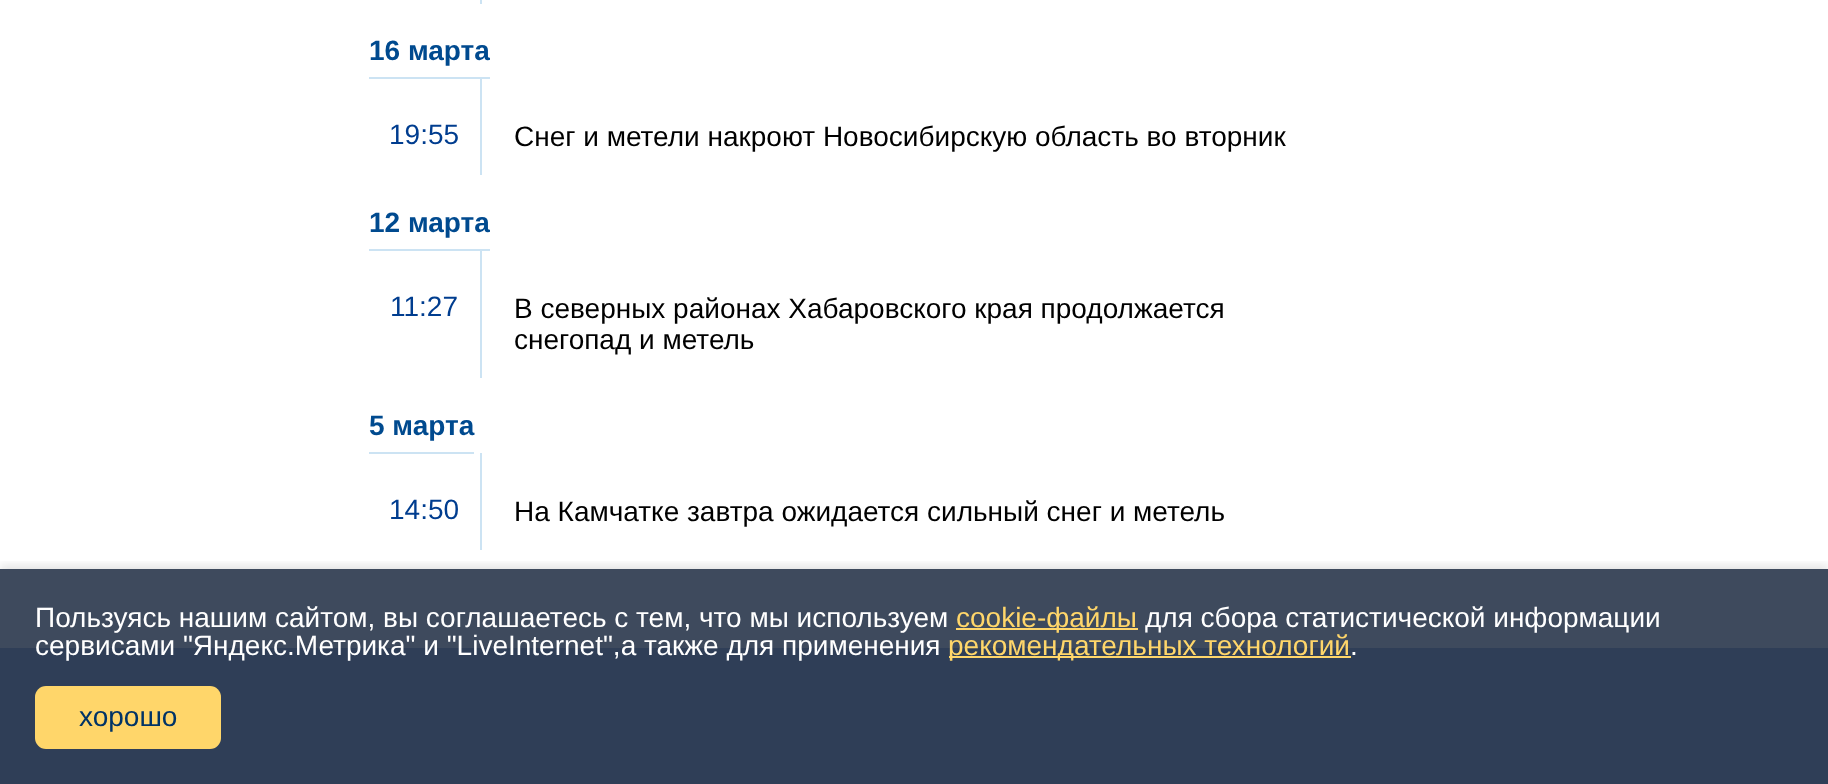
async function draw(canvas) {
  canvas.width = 1828
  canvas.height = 784
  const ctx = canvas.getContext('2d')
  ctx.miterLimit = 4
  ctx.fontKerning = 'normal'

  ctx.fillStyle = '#fff'
  ctx.fillRect(0, 0, 1828, 784)
  ctx.fillStyle = '#3e4a5d'
  ctx.fillRect(0, 569, 1828, 79)
  ctx.fillStyle = '#cce3f3'
  ctx.fillRect(480, 0, 2, 4)
  ctx.fillRect(369, 77, 121, 2)
  ctx.font = 'bold 28px Liberation Sans'
  ctx.fillStyle = '#004a8f'
  ctx.fillText('16 марта', 369, 60)
  ctx.font = '28px Liberation Sans'
  ctx.fillStyle = '#003d8f'
  ctx.fillText('19:55', 389, 144)
  ctx.fillStyle = '#cce3f3'
  ctx.fillRect(480, 79, 2, 96)
  ctx.fillStyle = '#000'
  ctx.fillText('Снег и метели накроют Новосибирскую область во вторник', 514, 146)
  ctx.fillStyle = '#cce3f3'
  ctx.fillRect(369, 249, 121, 2)
  ctx.font = 'bold 28px Liberation Sans'
  ctx.fillStyle = '#004a8f'
  ctx.fillText('12 марта', 369, 232)
  ctx.font = '28px Liberation Sans'
  ctx.fillStyle = '#003d8f'
  ctx.fillText('11:27', 390, 316)
  ctx.fillStyle = '#cce3f3'
  ctx.fillRect(480, 250, 2, 128)
  ctx.fillStyle = '#000'
  ctx.fillText('В северных районах Хабаровского края продолжается', 514, 318)
  ctx.fillText('снегопад и метель', 514, 349)
  ctx.fillStyle = '#cce3f3'
  ctx.fillRect(369, 452, 105, 2)
  ctx.font = 'bold 28px Liberation Sans'
  ctx.fillStyle = '#004a8f'
  ctx.fillText('5 марта', 369, 435)
  ctx.font = '28px Liberation Sans'
  ctx.fillStyle = '#003d8f'
  ctx.fillText('14:50', 389, 519)
  ctx.fillStyle = '#cce3f3'
  ctx.fillRect(480, 453, 2, 97)
  ctx.fillStyle = '#000'
  ctx.fillText('На Камчатке завтра ожидается сильный снег и метель', 514, 521)
  ctx.fillStyle = '#2f3e57'
  ctx.fillRect(0, 648, 1828, 136)
  ctx.save()
  ctx.beginPath()
  ctx.rect(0, 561, 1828, 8)
  ctx.clip()
  ctx.fillStyle = '#0000001a'
  ctx.filter = 'blur(4.5px)'
  ctx.beginPath()
  ctx.rect(0, 565, 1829, 216)
  ctx.fill()
  ctx.filter = 'none'
  ctx.restore()
  ctx.fillStyle = '#fff'
  ctx.fillText('Пользуясь нашим сайтом, вы соглашаетесь с тем, что мы используем', 35, 627)
  ctx.fillStyle = '#ffd66a'
  ctx.fillRect(956, 628, 182, 2)
  ctx.fillText('cookie-файлы', 956, 627)
  ctx.fillStyle = '#fff'
  ctx.fillText('для сбора статистической информации', 1145, 627)
  ctx.fillText('сервисами "Яндекс.Метрика" и "LiveInternet",а также для применения', 35, 655)
  ctx.fillStyle = '#ffd66a'
  ctx.fillRect(949, 656, 402, 2)
  ctx.fillText('рекомендательных технологий', 948, 655)
  ctx.fillStyle = '#fff'
  ctx.fillText('.', 1350, 655)
  ctx.fillStyle = '#ffd66a'
  ctx.beginPath()
  ctx.roundRect(35, 686, 186, 63, 11)
  ctx.fill()
  ctx.fillStyle = '#036'
  ctx.fillText('хорошо', 79, 726)
}

draw(document.querySelector('canvas'))
